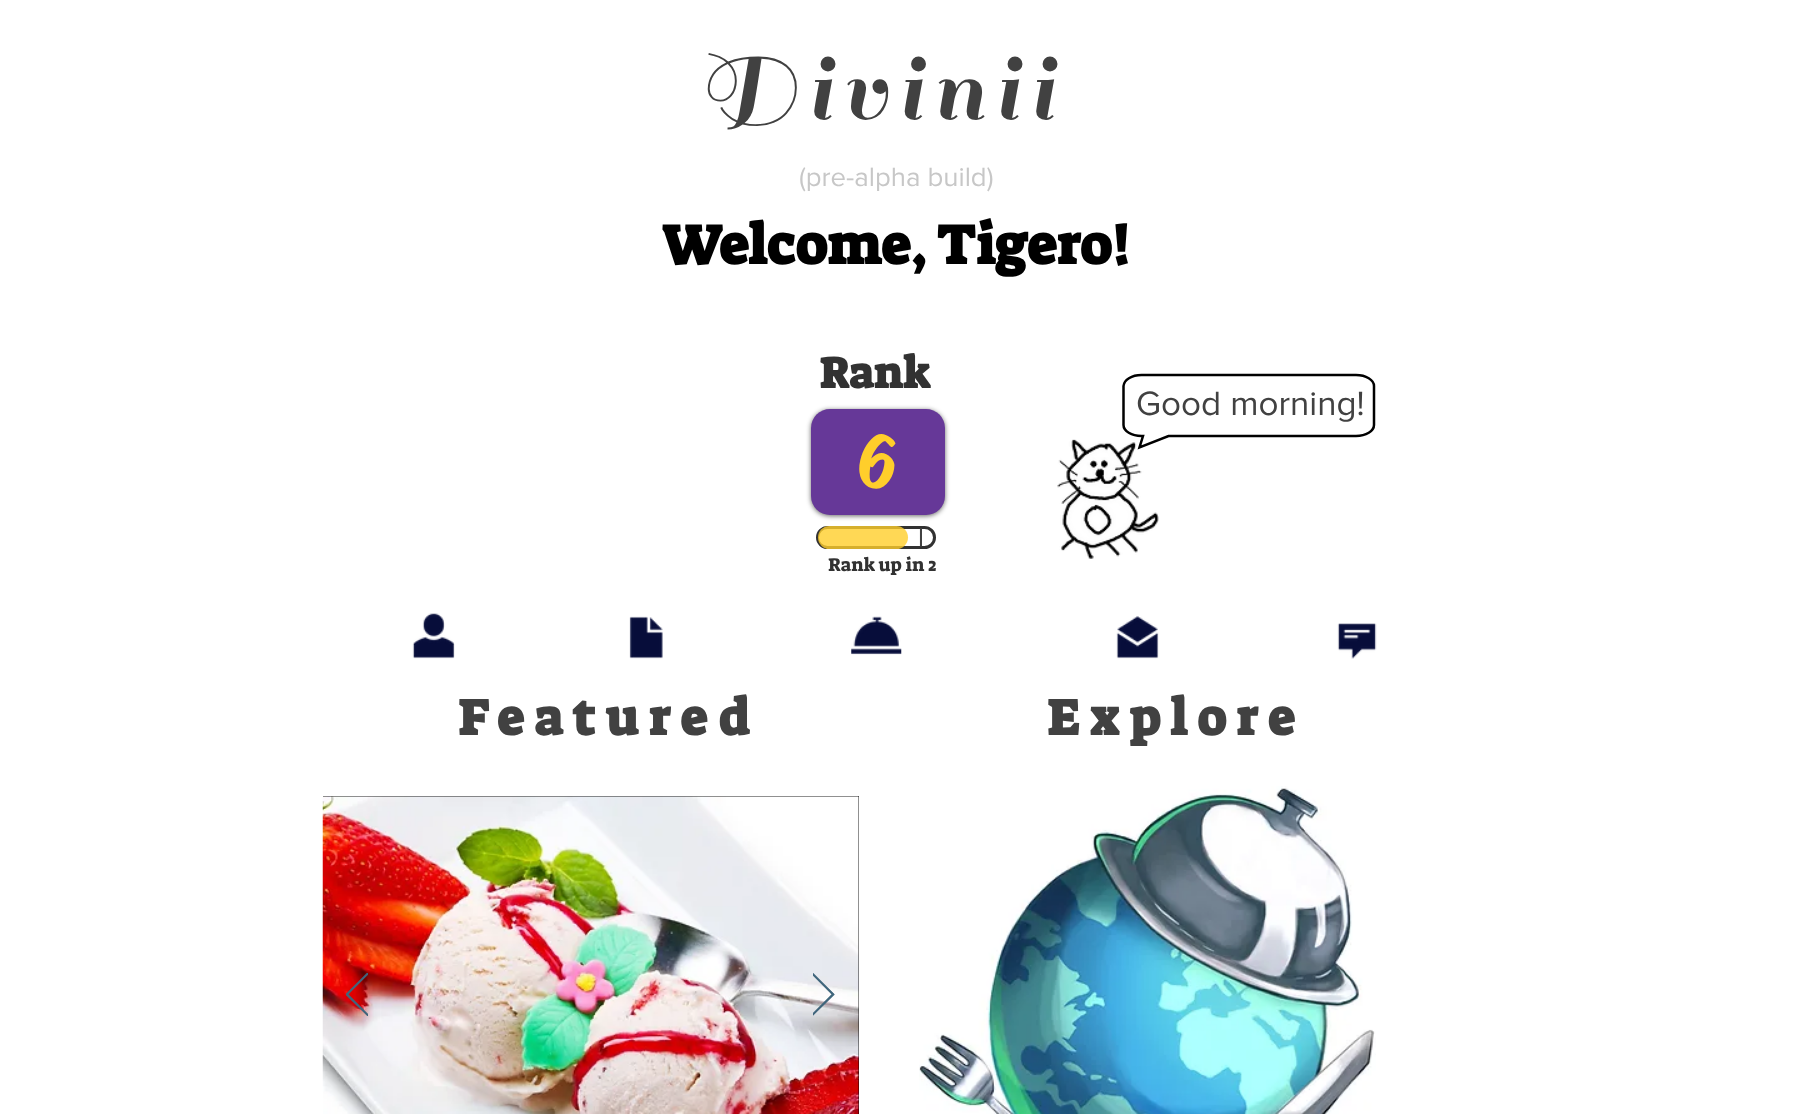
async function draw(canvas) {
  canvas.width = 1818
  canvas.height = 1114
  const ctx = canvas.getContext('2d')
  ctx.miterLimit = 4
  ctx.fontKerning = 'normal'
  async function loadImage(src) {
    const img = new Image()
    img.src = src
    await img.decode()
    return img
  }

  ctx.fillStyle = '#fff'
  ctx.fillRect(0, 0, 1818, 1114)
  ctx.letterSpacing = '10.25px'
  ctx.font = '102.5px Sail'
  ctx.fillStyle = '#414141'
  ctx.fillText('Divinii', 697, 119)
  ctx.letterSpacing = '0px'
  ctx.font = '27.5px "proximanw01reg"'
  ctx.fillStyle = '#c7c7c7'
  ctx.fillText('(pre-alpha build)', 799, 186)
  ctx.font = 'bold 56.25px Suez One'
  ctx.fillStyle = '#000'
  ctx.fillText('Welcome, Tigero!', 661, 264)
  ctx.font = 'bold 44px Suez One'
  ctx.fillStyle = '#323232'
  ctx.fillText('Rank', 819, 388)
  ctx.beginPath()
  ctx.moveTo(1141.5, 375)
  ctx.lineTo(1356, 375)
  ctx.bezierCurveTo(1366, 375, 1374, 380, 1374, 386)
  ctx.lineTo(1374, 425)
  ctx.bezierCurveTo(1374, 431, 1366, 436, 1356, 436)
  ctx.lineTo(1168.5, 436)
  ctx.lineTo(1139.5, 447.5)
  ctx.lineTo(1143, 436)
  ctx.lineTo(1141.5, 436)
  ctx.bezierCurveTo(1131.5, 436, 1123.5, 431, 1123.5, 425)
  ctx.lineTo(1123.5, 386)
  ctx.bezierCurveTo(1124, 380, 1131.5, 375, 1141.5, 375)
  ctx.closePath()
  ctx.strokeStyle = '#000'
  ctx.lineWidth = 2.5
  ctx.stroke()
  ctx.font = '35px "proximanw01reg"'
  ctx.fillStyle = '#414141'
  ctx.fillText('Good morning!', 1136, 415)
  ctx.fillStyle = '#00000099'
  ctx.filter = 'blur(2.5px)'
  ctx.beginPath()
  ctx.roundRect(811, 410, 134, 106, 19)
  ctx.fill()
  ctx.filter = 'none'
  ctx.fillStyle = '#663898'
  ctx.beginPath()
  ctx.roundRect(811, 409, 134, 106, 19)
  ctx.fill()
  ctx.font = '500 75px "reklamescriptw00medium"'
  ctx.fillStyle = '#ffce2b'
  ctx.fillText('6', 860, 487)
  ctx.drawImage(await loadImage('image0.png'), 1057, 439, 102, 120)
  ctx.beginPath()
  ctx.roundRect(817.5, 527.5, 117, 20, 10)
  ctx.strokeStyle = '#323232'
  ctx.lineWidth = 3
  ctx.stroke()
  ctx.fillStyle = '#ffce2bcc'
  ctx.beginPath()
  ctx.roundRect(818, 526, 90, 23, 11.5)
  ctx.fill()
  ctx.font = 'bold 25px "proximanw01reg"'
  ctx.fillStyle = '#414141'
  ctx.fillText('|', 918, 546)
  ctx.font = '18.75px Suez One'
  ctx.fillStyle = '#323232'
  ctx.fillText('Rank up in 2', 828, 571)
  ctx.drawImage(await loadImage('image1.png'), 412, 613, 43, 46)
  ctx.drawImage(await loadImage('image2.png'), 629, 616, 34, 43)
  ctx.drawImage(await loadImage('image3.png'), 851, 616, 51, 39)
  ctx.drawImage(await loadImage('image4.png'), 1116, 616, 43, 43)
  ctx.drawImage(await loadImage('image5.png'), 1337, 623, 40, 36)
  ctx.letterSpacing = '10.25px'
  ctx.font = 'bold 51.25px Suez One'
  ctx.fillStyle = '#414141'
  ctx.fillText('Featured', 458, 735)
  ctx.fillText('Explore', 1047, 735)
  ctx.fillStyle = '#000'
  ctx.fillRect(323, 796, 536, 318)
  ctx.drawImage(await loadImage('image6.png'), 322, 796, 537, 318)
  ctx.save()
  ctx.beginPath()
  ctx.rect(346, 973, 22, 43)
  ctx.clip()
  ctx.fillStyle = '#40667c'
  ctx.beginPath()
  ctx.moveTo(368, 1016)
  ctx.lineTo(346, 994)
  ctx.lineTo(368, 973)
  ctx.lineTo(369, 973)
  ctx.lineTo(348, 994)
  ctx.lineTo(369, 1015)
  ctx.closePath()
  ctx.fill()
  ctx.beginPath()
  ctx.moveTo(368, 1016)
  ctx.lineTo(346, 994.5)
  ctx.lineTo(368, 972.5)
  ctx.lineTo(368.5, 973.5)
  ctx.lineTo(347.5, 994.5)
  ctx.lineTo(368.5, 1015.5)
  ctx.closePath()
  ctx.strokeStyle = '#40667c'
  ctx.lineWidth = 1.1
  ctx.stroke()
  ctx.restore()
  ctx.save()
  ctx.beginPath()
  ctx.rect(813, 973, 22, 43)
  ctx.clip()
  ctx.fillStyle = '#40667c'
  ctx.beginPath()
  ctx.moveTo(812, 1016)
  ctx.lineTo(834, 994)
  ctx.lineTo(812, 973)
  ctx.lineTo(811, 973)
  ctx.lineTo(832, 994)
  ctx.lineTo(811, 1015)
  ctx.closePath()
  ctx.fill()
  ctx.beginPath()
  ctx.moveTo(812, 1016)
  ctx.lineTo(834, 994.5)
  ctx.lineTo(812, 972.5)
  ctx.lineTo(811.5, 973.5)
  ctx.lineTo(832.5, 994.5)
  ctx.lineTo(811.5, 1015.5)
  ctx.closePath()
  ctx.strokeStyle = '#40667c'
  ctx.lineWidth = 1.1
  ctx.stroke()
  ctx.restore()
  ctx.drawImage(await loadImage('image7.png'), 919, 786, 457, 328)
}

draw(document.querySelector('canvas'))
